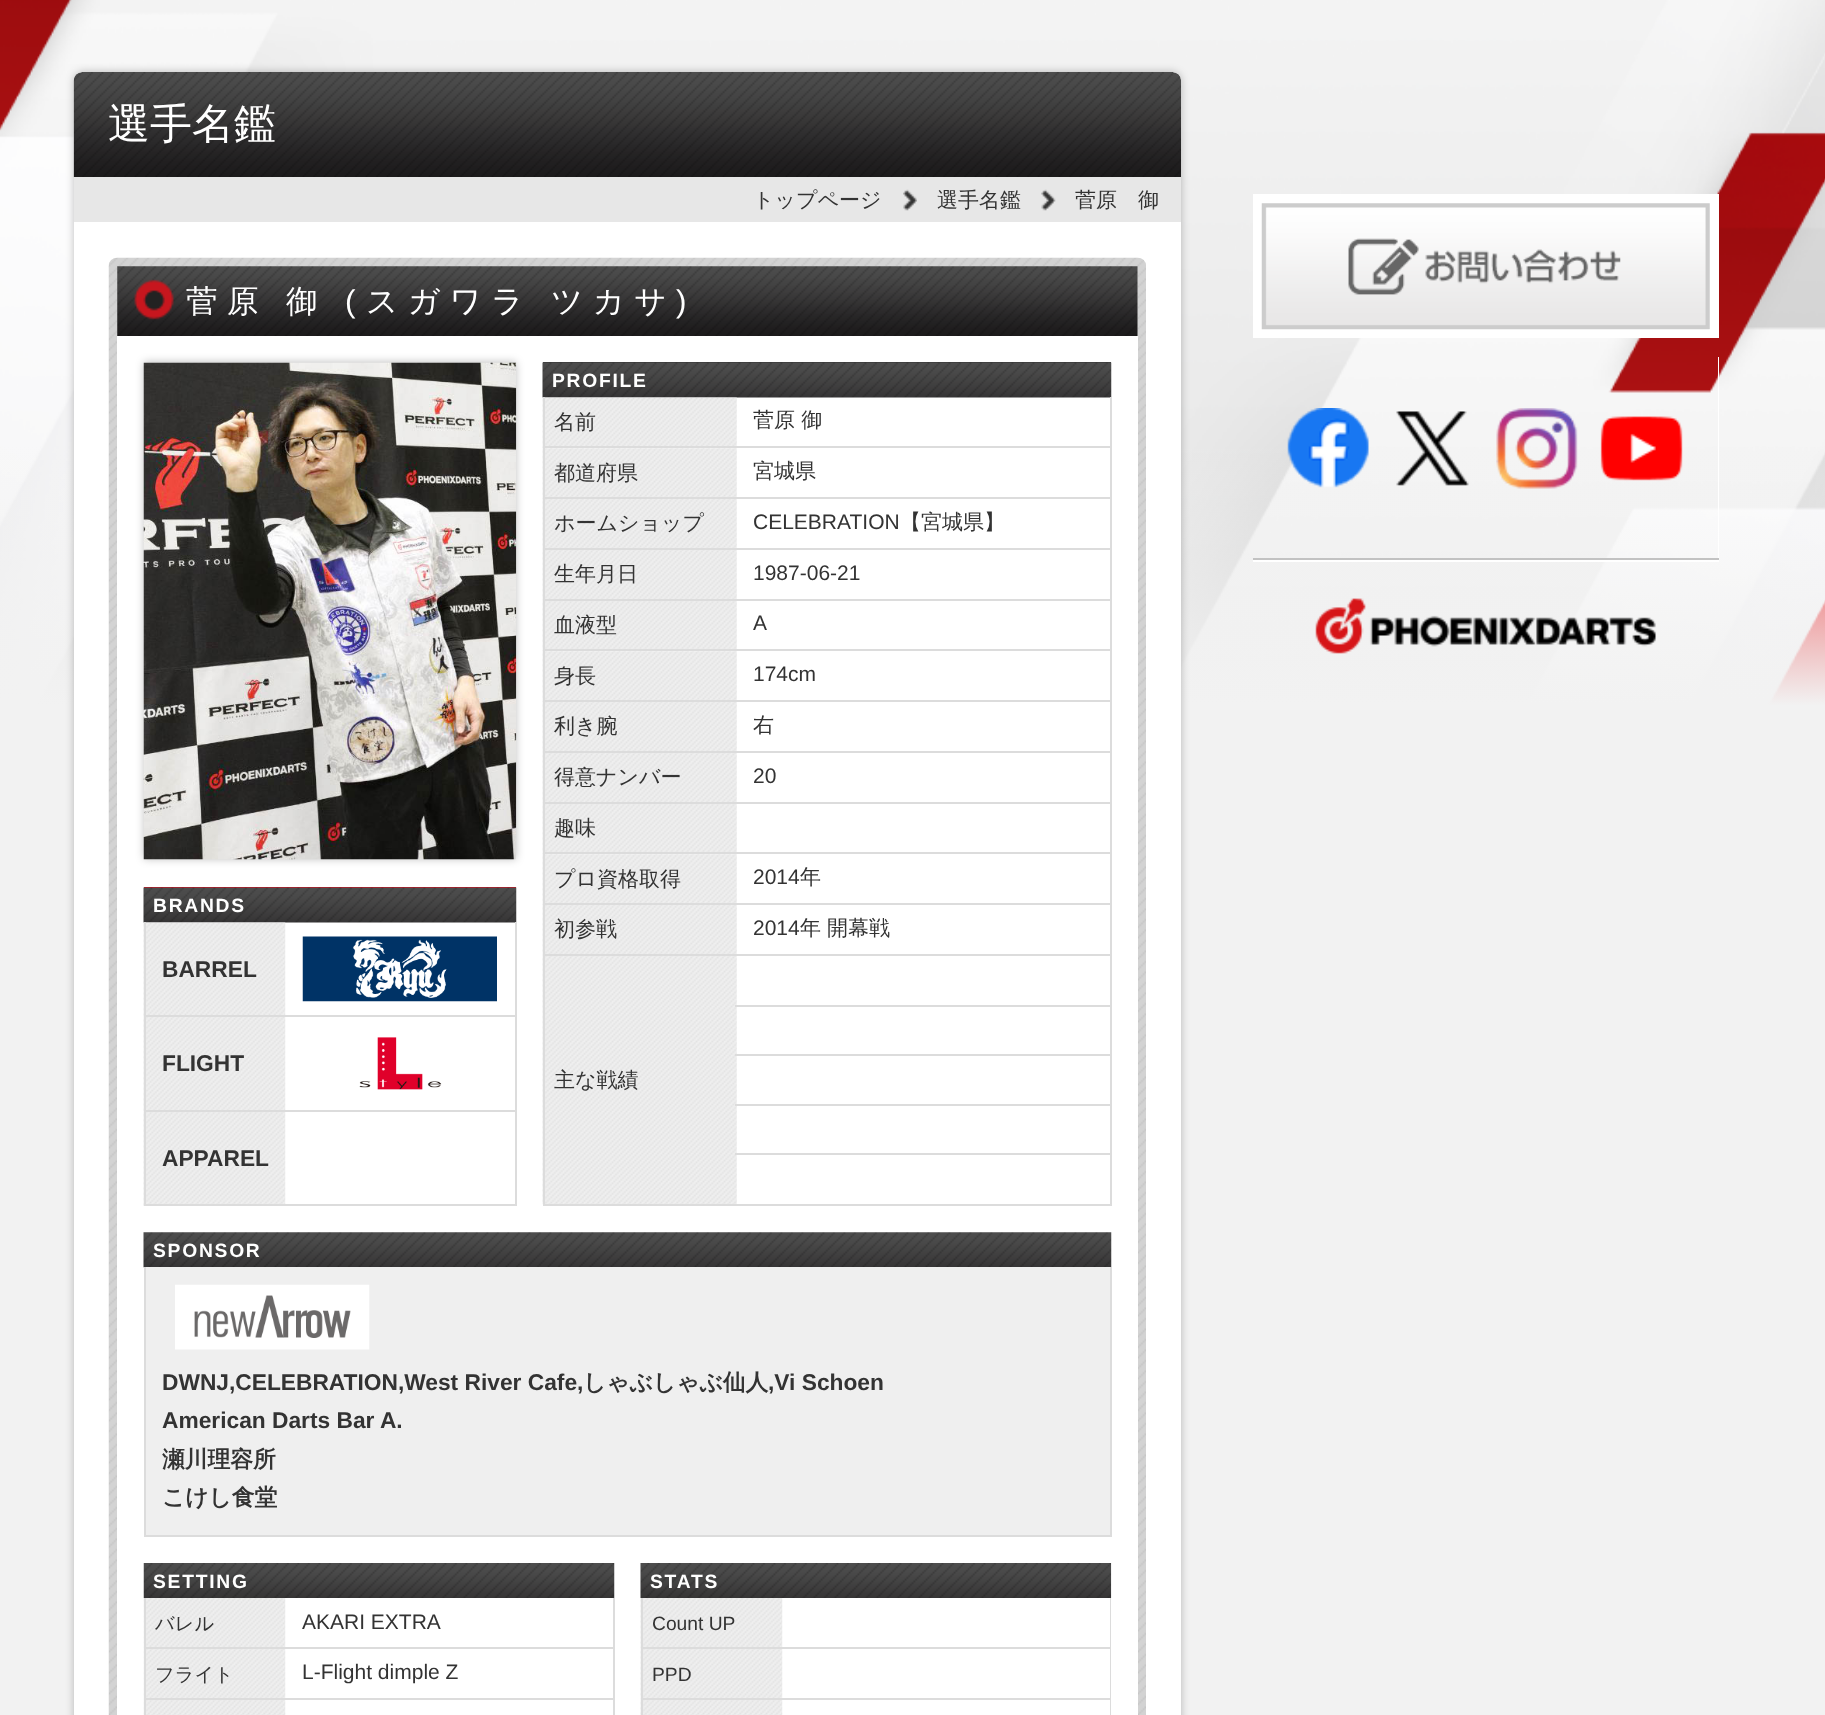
async function draw(canvas) {
  canvas.width = 1825
  canvas.height = 1715
  const ctx = canvas.getContext('2d')
  ctx.miterLimit = 4
  ctx.fontKerning = 'normal'
  async function loadImage(src) {
    const img = new Image()
    img.src = src
    await img.decode()
    return img
  }

  ctx.fillStyle = '#fff'
  ctx.fillRect(0, 0, 1825, 1715)
  ctx.drawImage(await loadImage('image0.png'), 0, 0, 1825, 1715)
  ctx.fillStyle = '#00000040'
  ctx.filter = 'blur(4.5px)'
  ctx.beginPath()
  ctx.roundRect(74, 72, 1107, 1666, 9)
  ctx.fill()
  ctx.filter = 'none'
  ctx.fillStyle = '#fff'
  ctx.beginPath()
  ctx.roundRect(74, 72, 1107, 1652, 9)
  ctx.fill()
  ctx.drawImage(await loadImage('image1.png'), 73, 72, 1108, 105)
  ctx.font = '500 42px WenQuanYi Zen Hei'
  ctx.fillText('選手名鑑', 108, 138)
  ctx.fillStyle = '#e7e7e7'
  ctx.fillRect(74, 177, 1107, 45)
  ctx.font = '500 21px WenQuanYi Zen Hei'
  ctx.fillStyle = '#333'
  ctx.fillText('トップページ', 753, 207)
  ctx.drawImage(await loadImage('image2.png'), 903, 189, 14, 22)
  ctx.fillText('選手名鑑', 937, 207)
  ctx.drawImage(await loadImage('image3.png'), 1041, 189, 15, 22)
  ctx.fillText('菅原　御', 1075, 207)
  ctx.drawImage(await loadImage('image4.png'), 108, 257, 1038, 1458)
  ctx.drawImage(await loadImage('image5.png'), 117, 266, 1021, 70)
  ctx.letterSpacing = '9.5px'
  ctx.wordSpacing = '-1px'
  ctx.font = '500 31.5px WenQuanYi Zen Hei'
  ctx.fillStyle = '#fff'
  ctx.fillText('菅原 御', 186, 312)
  ctx.wordSpacing = '0px'
  ctx.font = '31.5px Liberation Sans'
  ctx.fillText('(', 345, 312)
  ctx.wordSpacing = '-1px'
  ctx.font = '500 31.5px WenQuanYi Zen Hei'
  ctx.fillText('スガワラ ツカサ', 366, 312)
  ctx.wordSpacing = '0px'
  ctx.font = '31.5px Liberation Sans'
  ctx.fillText(')', 676, 312)
  ctx.fillRect(117, 336, 1021, 1379)
  ctx.fillStyle = '#00000040'
  ctx.filter = 'blur(4.5px)'
  ctx.beginPath()
  ctx.rect(144, 362, 372, 497)
  ctx.fill()
  ctx.filter = 'none'
  ctx.drawImage(await loadImage('image6.png'), 143, 362, 374, 498)
  ctx.fillStyle = '#333'
  ctx.fillRect(543, 362, 568, 1)
  ctx.drawImage(await loadImage('image7.png'), 542, 362, 570, 36)
  ctx.letterSpacing = '1.75px'
  ctx.font = 'bold 19.25px Liberation Sans'
  ctx.fillStyle = '#fff'
  ctx.fillText('PROFILE', 552, 387)
  ctx.fillStyle = '#dcdcdc'
  ctx.fillRect(1110, 397, 2, 809)
  ctx.drawImage(await loadImage('image14.png'), 542, 956, 195, 249)
  ctx.fillRect(543, 1204, 568, 2)
  ctx.drawImage(await loadImage('image8.png'), 542, 397, 195, 52)
  ctx.drawImage(await loadImage('image9.png'), 542, 448, 195, 51)
  ctx.drawImage(await loadImage('image10.png'), 542, 499, 195, 51)
  ctx.drawImage(await loadImage('image11.png'), 542, 550, 195, 51)
  ctx.drawImage(await loadImage('image12.png'), 542, 600, 195, 52)
  ctx.drawImage(await loadImage('image13.png'), 542, 651, 195, 51)
  ctx.drawImage(await loadImage('image10.png'), 542, 702, 195, 51)
  ctx.drawImage(await loadImage('image11.png'), 542, 753, 195, 51)
  ctx.drawImage(await loadImage('image12.png'), 542, 803, 195, 52)
  ctx.drawImage(await loadImage('image13.png'), 542, 854, 195, 51)
  ctx.drawImage(await loadImage('image10.png'), 542, 905, 195, 51)
  ctx.fillRect(543, 954, 2, 252)
  ctx.fillRect(543, 954, 568, 2)
  ctx.fillRect(543, 903, 2, 53)
  ctx.fillRect(543, 903, 568, 2)
  ctx.fillRect(543, 852, 2, 53)
  ctx.fillRect(543, 852, 568, 2)
  ctx.fillRect(543, 802, 2, 52)
  ctx.fillRect(543, 802, 568, 2)
  ctx.fillRect(543, 751, 2, 52)
  ctx.fillRect(543, 751, 568, 2)
  ctx.fillRect(543, 700, 2, 53)
  ctx.fillRect(543, 700, 568, 2)
  ctx.fillRect(543, 649, 2, 53)
  ctx.fillRect(543, 649, 568, 2)
  ctx.fillRect(543, 599, 2, 52)
  ctx.fillRect(543, 599, 568, 2)
  ctx.fillRect(543, 548, 2, 52)
  ctx.fillRect(543, 548, 568, 2)
  ctx.fillRect(543, 497, 2, 53)
  ctx.fillRect(543, 497, 568, 2)
  ctx.fillRect(543, 446, 2, 53)
  ctx.fillRect(543, 446, 568, 2)
  ctx.fillRect(543, 397, 2, 51)
  ctx.letterSpacing = '0px'
  ctx.font = '500 21px WenQuanYi Zen Hei'
  ctx.fillStyle = '#333'
  ctx.fillText('名前', 554, 429)
  ctx.fillText('菅原 御', 753, 427)
  ctx.fillText('都道府県', 554, 480)
  ctx.fillText('宮城県', 753, 478)
  ctx.fillText('ホームショップ', 554, 530)
  ctx.font = '21px Liberation Sans'
  ctx.fillText('CELEBRATION', 753, 529)
  ctx.font = '500 21px WenQuanYi Zen Hei'
  ctx.fillText('【宮城県】', 900, 529)
  ctx.fillText('生年月日', 554, 581)
  ctx.font = '21px Liberation Sans'
  ctx.fillText('1987-06-21', 753, 580)
  ctx.font = '500 21px WenQuanYi Zen Hei'
  ctx.fillText('血液型', 554, 632)
  ctx.font = '21px Liberation Sans'
  ctx.fillText('A', 753, 630)
  ctx.font = '500 21px WenQuanYi Zen Hei'
  ctx.fillText('身長', 554, 683)
  ctx.font = '21px Liberation Sans'
  ctx.fillText('174cm', 753, 681)
  ctx.font = '500 21px WenQuanYi Zen Hei'
  ctx.fillText('利き腕', 554, 733)
  ctx.fillText('右', 753, 732)
  ctx.fillText('得意ナンバー', 554, 784)
  ctx.font = '21px Liberation Sans'
  ctx.fillText('20', 753, 783)
  ctx.font = '500 21px WenQuanYi Zen Hei'
  ctx.fillText('趣味', 554, 835)
  ctx.fillText('プロ資格取得', 554, 886)
  ctx.font = '21px Liberation Sans'
  ctx.fillText('2014', 753, 884)
  ctx.font = '500 21px WenQuanYi Zen Hei'
  ctx.fillText('年', 800, 884)
  ctx.fillText('初参戦', 554, 936)
  ctx.font = '21px Liberation Sans'
  ctx.fillText('2014', 753, 935)
  ctx.font = '500 21px WenQuanYi Zen Hei'
  ctx.fillText('年', 800, 935)
  ctx.fillText('開幕戦', 827, 935)
  ctx.fillStyle = '#dcdcdc'
  ctx.fillRect(735, 1054, 376, 2)
  ctx.fillRect(735, 1005, 376, 2)
  ctx.fillStyle = '#333'
  ctx.fillText('主な戦績', 554, 1087)
  ctx.fillStyle = '#dcdcdc'
  ctx.fillRect(735, 1104, 376, 2)
  ctx.fillRect(735, 1153, 376, 2)
  ctx.fillStyle = '#e60012'
  ctx.fillRect(144, 887, 372, 1)
  ctx.drawImage(await loadImage('image15.png'), 143, 887, 374, 36)
  ctx.letterSpacing = '1.75px'
  ctx.font = 'bold 19.25px Liberation Sans'
  ctx.fillStyle = '#fff'
  ctx.fillText('BRANDS', 153, 912)
  ctx.drawImage(await loadImage('image17.png'), 143, 922, 143, 95)
  ctx.drawImage(await loadImage('image19.png'), 143, 1017, 143, 95)
  ctx.fillStyle = '#dcdcdc'
  ctx.fillRect(515, 922, 2, 284)
  ctx.drawImage(await loadImage('image20.png'), 143, 1111, 143, 95)
  ctx.fillRect(144, 1204, 372, 2)
  ctx.fillRect(144, 1110, 2, 96)
  ctx.fillRect(144, 1110, 372, 2)
  ctx.fillRect(144, 1015, 2, 96)
  ctx.fillRect(144, 1015, 372, 2)
  ctx.drawImage(await loadImage('image16.png'), 302, 936, 195, 66)
  ctx.fillRect(144, 922, 2, 95)
  ctx.letterSpacing = '0px'
  ctx.font = 'bold 22.75px Liberation Sans'
  ctx.fillStyle = '#333'
  ctx.fillText('BARREL', 162, 977)
  ctx.drawImage(await loadImage('image18.png'), 359, 1037, 83, 53)
  ctx.fillText('FLIGHT', 162, 1071)
  ctx.fillText('APPAREL', 162, 1166)
  ctx.drawImage(await loadImage('image21.png'), 143, 1232, 969, 36)
  ctx.letterSpacing = '1.75px'
  ctx.font = 'bold 19.25px Liberation Sans'
  ctx.fillStyle = '#fff'
  ctx.fillText('SPONSOR', 153, 1257)
  ctx.fillStyle = '#efefef'
  ctx.fillRect(146, 1267, 964, 268)
  ctx.fillStyle = '#dcdcdc'
  ctx.fillRect(1110, 1267, 2, 270)
  ctx.fillRect(144, 1535, 967, 2)
  ctx.fillRect(144, 1267, 2, 270)
  ctx.drawImage(await loadImage('image22.png'), 175, 1284, 195, 66)
  ctx.letterSpacing = '0px'
  ctx.font = 'bold 22.75px Liberation Sans'
  ctx.fillStyle = '#333'
  ctx.fillText('DWNJ,CELEBRATION,West River Cafe,', 162, 1390)
  ctx.font = 'bold 22.75px WenQuanYi Zen Hei'
  ctx.fillText('しゃぶしゃぶ仙人', 583, 1390)
  ctx.font = 'bold 22.75px Liberation Sans'
  ctx.fillText(',Vi Schoen', 768, 1390)
  ctx.fillText('American Darts Bar A.', 162, 1428)
  ctx.font = 'bold 22.75px WenQuanYi Zen Hei'
  ctx.fillText('瀬川理容所', 162, 1467)
  ctx.fillText('こけし食堂', 162, 1505)
  ctx.drawImage(await loadImage('image23.png'), 143, 1563, 472, 35)
  ctx.letterSpacing = '1.75px'
  ctx.font = 'bold 19.25px Liberation Sans'
  ctx.fillStyle = '#fff'
  ctx.fillText('SETTING', 153, 1588)
  ctx.drawImage(await loadImage('image26.png'), 143, 1649, 143, 51)
  ctx.drawImage(await loadImage('image24.png'), 143, 1699, 143, 16)
  ctx.fillStyle = '#dcdcdc'
  ctx.fillRect(144, 1698, 2, 17)
  ctx.fillRect(613, 1598, 2, 117)
  ctx.drawImage(await loadImage('image25.png'), 143, 1598, 143, 51)
  ctx.fillRect(144, 1698, 470, 2)
  ctx.fillRect(144, 1647, 2, 52)
  ctx.fillRect(144, 1647, 470, 2)
  ctx.fillRect(144, 1598, 2, 51)
  ctx.letterSpacing = '0px'
  ctx.font = '500 19.25px WenQuanYi Zen Hei'
  ctx.fillStyle = '#333'
  ctx.fillText('バレル', 155, 1630)
  ctx.font = '21px Liberation Sans'
  ctx.fillText('AKARI EXTRA', 302, 1629)
  ctx.font = '500 19.25px WenQuanYi Zen Hei'
  ctx.fillText('フライト', 155, 1681)
  ctx.font = '21px Liberation Sans'
  ctx.fillText('L-Flight dimple Z', 302, 1679)
  ctx.drawImage(await loadImage('image27.png'), 640, 1563, 472, 35)
  ctx.letterSpacing = '1.75px'
  ctx.font = 'bold 19.25px Liberation Sans'
  ctx.fillStyle = '#fff'
  ctx.fillText('STATS', 650, 1588)
  ctx.drawImage(await loadImage('image30.png'), 640, 1649, 143, 51)
  ctx.drawImage(await loadImage('image28.png'), 640, 1699, 143, 16)
  ctx.fillStyle = '#dcdcdc'
  ctx.fillRect(641, 1698, 2, 17)
  ctx.fillRect(1110, 1598, 1, 117)
  ctx.drawImage(await loadImage('image29.png'), 640, 1598, 143, 51)
  ctx.fillRect(641, 1698, 470, 2)
  ctx.fillRect(641, 1647, 2, 52)
  ctx.fillRect(641, 1647, 470, 2)
  ctx.fillRect(641, 1598, 2, 51)
  ctx.letterSpacing = '0px'
  ctx.font = '19.25px Liberation Sans'
  ctx.fillStyle = '#333'
  ctx.fillText('Count UP', 652, 1630)
  ctx.fillText('PPD', 652, 1681)
  ctx.fillStyle = '#fff'
  ctx.fillRect(1253, 194, 466, 144)
  ctx.drawImage(await loadImage('image31.png'), 1261, 203, 449, 127)
  ctx.beginPath()
  ctx.moveTo(1253, 560)
  ctx.lineTo(1253, 562)
  ctx.lineTo(1719, 562)
  ctx.lineTo(1719, 357)
  ctx.lineTo(1718, 357)
  ctx.lineTo(1718, 560)
  ctx.closePath()
  ctx.fill()
  ctx.fillStyle = '#c2c2c2'
  ctx.fillRect(1253, 558, 466, 2)
  ctx.drawImage(await loadImage('image32.png'), 1287, 408, 82, 80)
  ctx.drawImage(await loadImage('image33.png'), 1396, 411, 73, 75)
  ctx.drawImage(await loadImage('image34.png'), 1496, 408, 82, 81)
  ctx.drawImage(await loadImage('image35.png'), 1600, 416, 83, 65)
  ctx.drawImage(await loadImage('image36.png'), 1315, 598, 341, 56)
}

draw(document.querySelector('canvas'))
